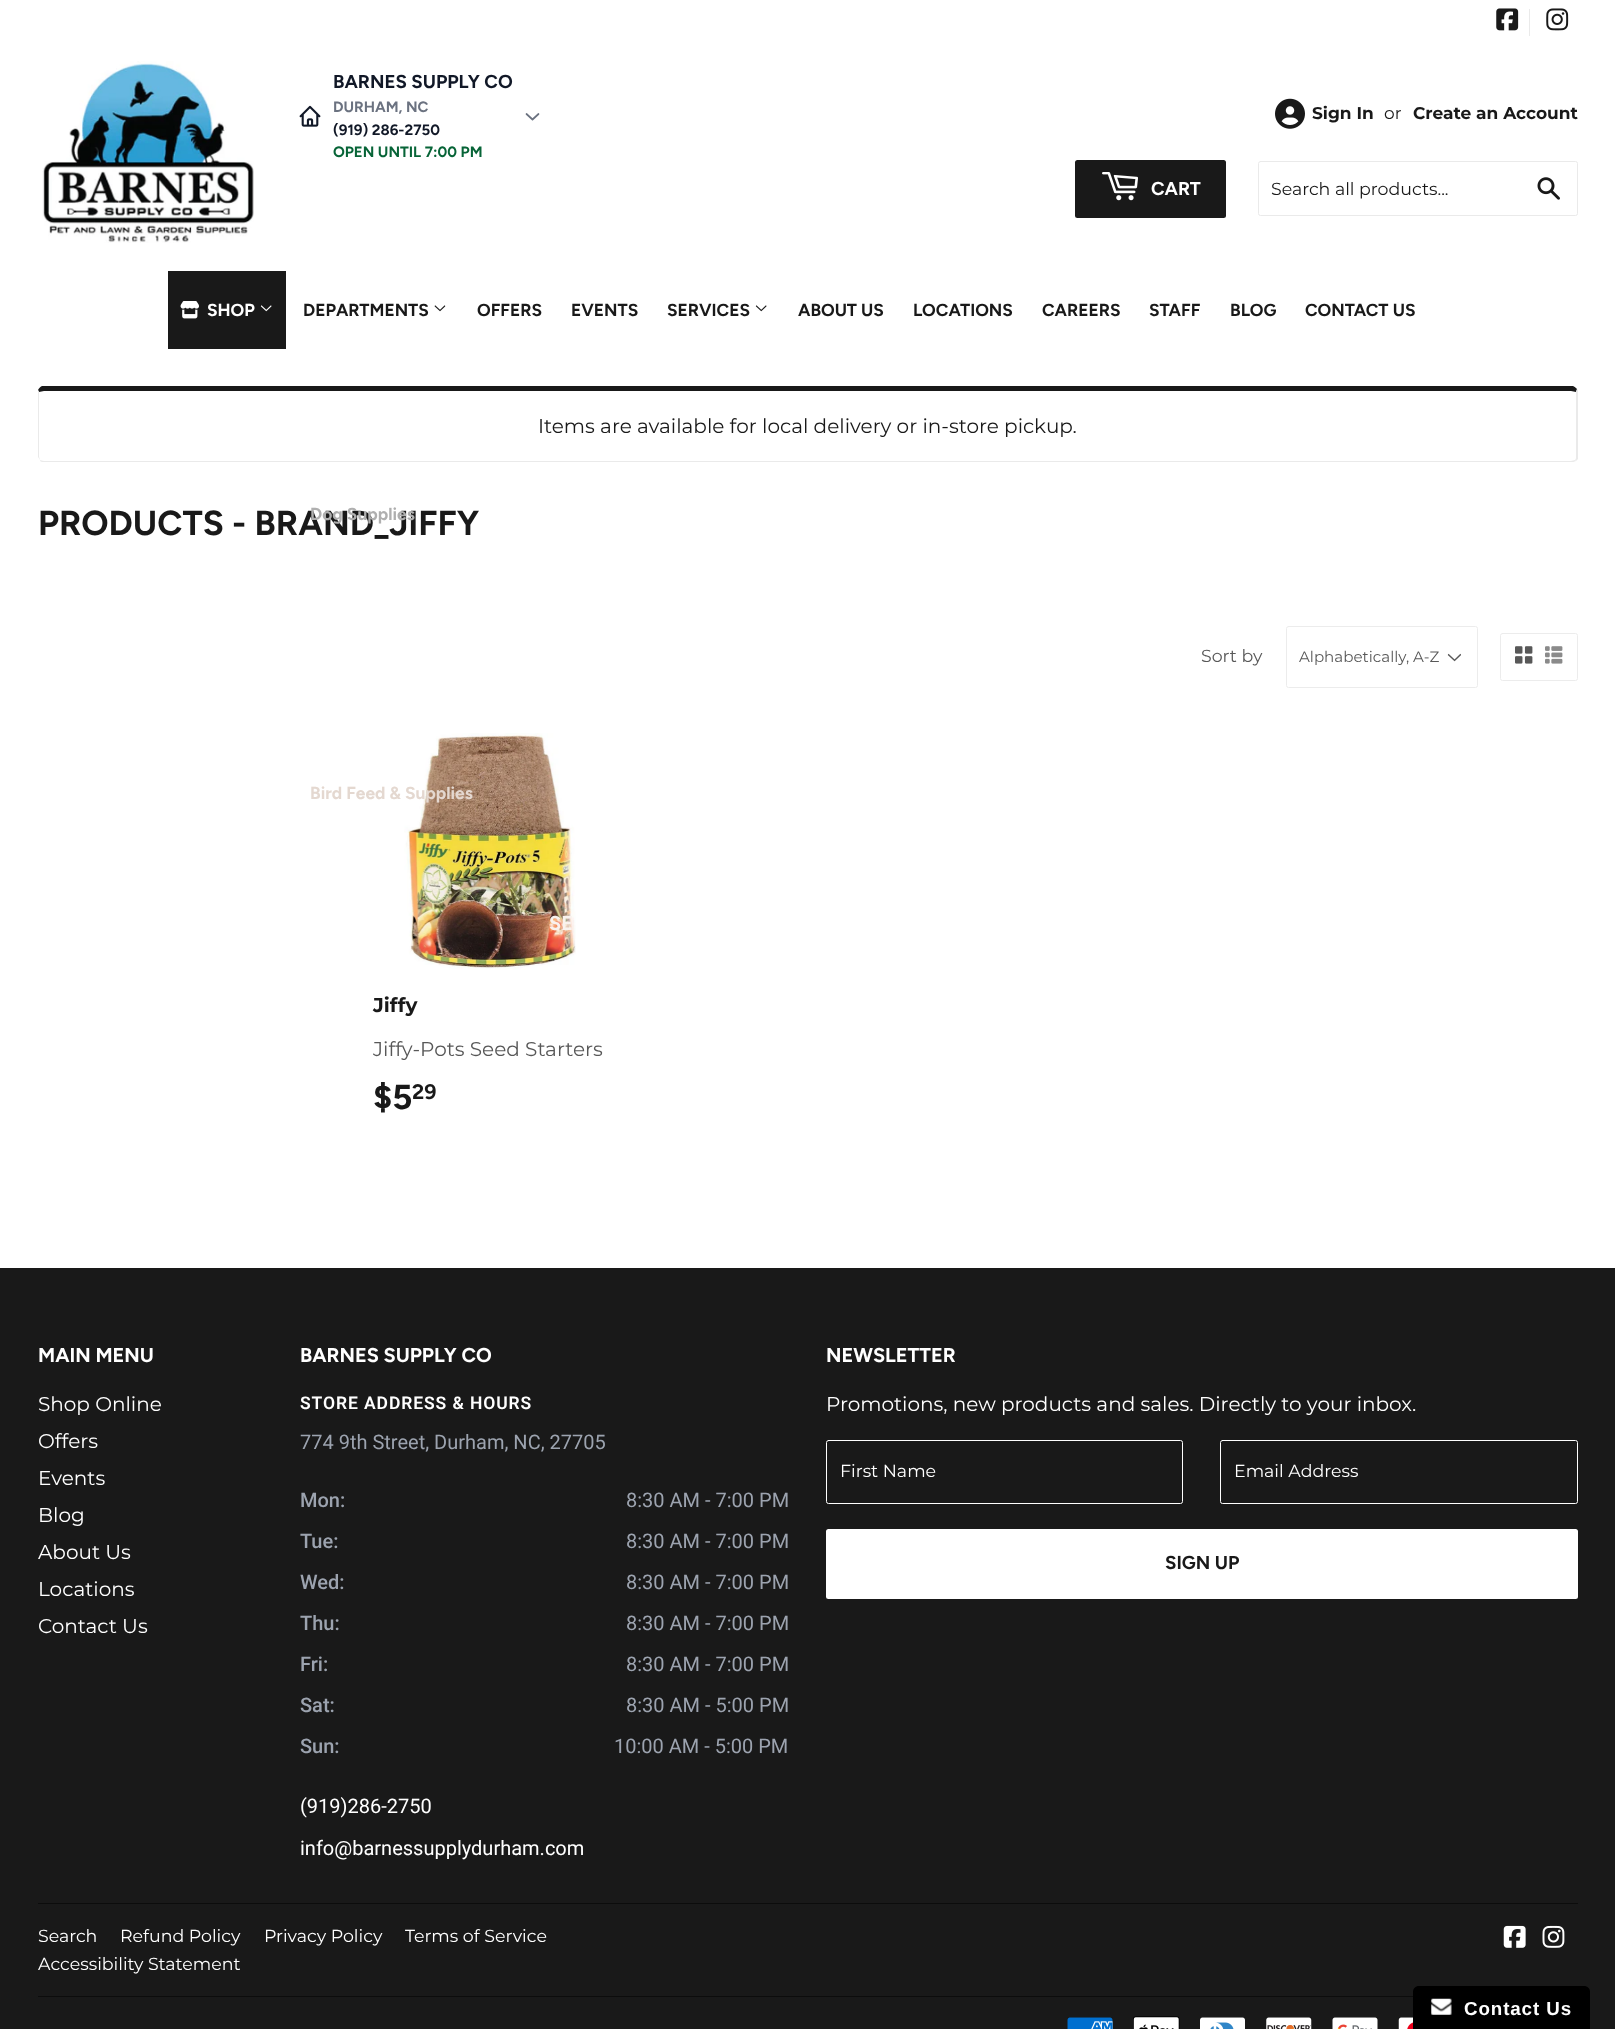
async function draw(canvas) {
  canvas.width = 1615
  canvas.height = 2029
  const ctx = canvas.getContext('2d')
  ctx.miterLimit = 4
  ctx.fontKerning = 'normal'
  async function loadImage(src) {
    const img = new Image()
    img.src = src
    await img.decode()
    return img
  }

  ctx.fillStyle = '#fff'
  ctx.fillRect(0, 0, 1615, 2029)
  ctx.fillStyle = '#eaeaea'
  ctx.fillRect(1529, 9, 1, 27)
  ctx.drawImage(await loadImage('image0.png'), 1496, 8, 23, 23)
  ctx.drawImage(await loadImage('image1.png'), 1546, 8, 23, 23)
  ctx.drawImage(await loadImage('image2.png'), 42, 61, 212, 182)
  ctx.drawImage(await loadImage('image3.png'), 299, 105, 22, 22)
  ctx.font = 'bold 18.75px Figtree'
  ctx.fillStyle = '#111827'
  ctx.fillText('BARNES SUPPLY CO', 333, 88)
  ctx.font = 'bold 15px Figtree'
  ctx.fillStyle = '#6b7280'
  ctx.fillText('DURHAM, NC', 333, 112)
  ctx.fillStyle = '#111827'
  ctx.fillText('(919) 286-2750', 333, 135)
  ctx.fillStyle = '#076437'
  ctx.fillText('OPEN UNTIL 7:00 PM', 333, 157)
  ctx.beginPath()
  ctx.moveTo(538.5, 114)
  ctx.lineTo(532.5, 119.5)
  ctx.lineTo(526.5, 114)
  ctx.strokeStyle = '#6b7280'
  ctx.lineWidth = 1.7
  ctx.lineCap = 'round'
  ctx.lineJoin = 'round'
  ctx.stroke()
  ctx.drawImage(await loadImage('image14.png'), 404, 733, 172, 237)
  ctx.font = 'bold 20px Figtree'
  ctx.fillStyle = '#f9f2ee'
  ctx.fillText('SE', 549, 930)
  ctx.drawImage(await loadImage('image4.png'), 1275, 98, 30, 31)
  ctx.font = 'bold 17px Montserrat'
  ctx.fillStyle = '#191919'
  ctx.fillText('Sign In', 1312, 119)
  ctx.font = '17px Montserrat'
  ctx.fillText('or', 1384, 119)
  ctx.font = 'bold 17px Montserrat'
  ctx.fillText('Create an Account', 1413, 119)
  ctx.beginPath()
  ctx.roundRect(1075, 160, 151, 58, 2.5)
  ctx.fill()
  ctx.drawImage(await loadImage('image5.png'), 1102, 172, 36, 29)
  ctx.font = 'bold 18.75px Figtree'
  ctx.fillStyle = '#fff'
  ctx.fillText('CART', 1151, 195)
  ctx.beginPath()
  ctx.roundRect(1258.5, 161.5, 319, 54, 2)
  ctx.strokeStyle = '#eaeaea'
  ctx.lineWidth = 1
  ctx.lineJoin = 'miter'
  ctx.stroke()
  ctx.font = '17.4px Montserrat'
  ctx.fillStyle = '#191919'
  ctx.fillText('Search all products...', 1271, 195)
  ctx.drawImage(await loadImage('image6.png'), 1537, 177, 23, 23)
  ctx.fillRect(168, 271, 118, 78)
  ctx.drawImage(await loadImage('image7.png'), 180, 301, 19, 18)
  ctx.font = 'bold 17.4px Figtree'
  ctx.fillStyle = '#fff'
  ctx.fillText('SHOP', 207, 316)
  ctx.drawImage(await loadImage('image8.png'), 260, 305, 12, 7)
  ctx.fillStyle = '#191919'
  ctx.fillText('DEPARTMENTS', 303, 316)
  ctx.drawImage(await loadImage('image9.png'), 434, 305, 12, 7)
  ctx.font = 'bold 34.7px Figtree'
  ctx.fillText('PRODUCTS - BRAND_JIFFY', 38, 535)
  ctx.font = 'bold 17.4px Figtree'
  ctx.fillStyle = '#afafaf'
  ctx.fillText('Dog Supplies', 310, 520)
  ctx.fillStyle = '#e4d8d0'
  ctx.fillText('Bird Feed & Supplies', 310, 799)
  ctx.fillStyle = '#191919'
  ctx.fillText('OFFERS', 477, 316)
  ctx.fillText('EVENTS', 571, 316)
  ctx.fillText('SERVICES', 667, 316)
  ctx.drawImage(await loadImage('image10.png'), 755, 305, 12, 7)
  ctx.fillText('ABOUT US', 798, 316)
  ctx.fillText('LOCATIONS', 913, 316)
  ctx.fillText('CAREERS', 1042, 316)
  ctx.fillText('STAFF', 1149, 316)
  ctx.fillText('BLOG', 1230, 316)
  ctx.fillText('CONTACT US', 1305, 316)
  ctx.beginPath()
  ctx.moveTo(44, 391)
  ctx.lineTo(39, 392)
  ctx.lineTo(38, 390)
  ctx.bezierCurveTo(39, 388, 40, 387, 42, 386)
  ctx.lineTo(1573, 386)
  ctx.bezierCurveTo(1575, 387, 1576, 388, 1577, 389)
  ctx.lineTo(1576, 392)
  ctx.lineTo(1571, 391)
  ctx.closePath()
  ctx.fill()
  ctx.fillStyle = '#eaeaea'
  ctx.beginPath()
  ctx.moveTo(1578, 459)
  ctx.lineTo(1576, 461)
  ctx.lineTo(1575, 460)
  ctx.bezierCurveTo(1576, 459, 1576, 458, 1576, 456)
  ctx.lineTo(1576, 392)
  ctx.lineTo(1577, 389)
  ctx.lineTo(1578, 390)
  ctx.closePath()
  ctx.fill()
  ctx.beginPath()
  ctx.moveTo(1576, 461)
  ctx.bezierCurveTo(1574, 462, 1573, 462, 1571, 462)
  ctx.lineTo(44, 462)
  ctx.bezierCurveTo(42, 462, 40, 462, 40, 460)
  ctx.bezierCurveTo(41, 460, 42, 461, 44, 461)
  ctx.lineTo(1571, 461)
  ctx.bezierCurveTo(1572, 461, 1574, 460, 1575, 460)
  ctx.closePath()
  ctx.fill()
  ctx.beginPath()
  ctx.moveTo(40, 460)
  ctx.lineTo(38, 457)
  ctx.lineTo(38, 390)
  ctx.lineTo(39, 392)
  ctx.lineTo(39, 456)
  ctx.bezierCurveTo(39, 458, 40, 459, 40, 460)
  ctx.closePath()
  ctx.fill()
  ctx.font = '20px Montserrat'
  ctx.fillStyle = '#191919'
  ctx.fillText('Items are available for local delivery or in-store pickup.', 538, 433)
  ctx.font = '17.4px Montserrat'
  ctx.fillStyle = '#585858'
  ctx.fillText('Sort by', 1201, 662)
  ctx.drawImage(await loadImage('image11.png'), 1447, 653, 14, 9)
  ctx.beginPath()
  ctx.roundRect(1286.5, 626.5, 191, 61, 2)
  ctx.strokeStyle = '#ececec'
  ctx.stroke()
  ctx.font = '15.1px Montserrat'
  ctx.fillText('Alphabetically, A-Z', 1299, 662)
  ctx.beginPath()
  ctx.roundRect(1500.5, 633.5, 77, 47, 2)
  ctx.stroke()
  ctx.drawImage(await loadImage('image12.png'), 1515, 646, 18, 18)
  ctx.drawImage(await loadImage('image13.png'), 1545, 646, 18, 18)
  ctx.font = 'bold 20px Montserrat'
  ctx.fillStyle = '#191919'
  ctx.fillText('Jiffy', 373, 1012)
  ctx.font = '20px Montserrat'
  ctx.fillStyle = '#585858'
  ctx.fillText('Jiffy-Pots Seed Starters', 373, 1056)
  ctx.font = 'bold 34.7px Figtree'
  ctx.fillStyle = '#191919'
  ctx.fillText('$5', 373, 1109)
  ctx.font = 'bold 21px Figtree'
  ctx.fillText('29', 412, 1099)
  ctx.fillRect(0, 1268, 1615, 761)
  ctx.font = 'bold 20px Figtree'
  ctx.fillStyle = '#fff'
  ctx.fillText('MAIN MENU', 38, 1362)
  ctx.font = '20px Montserrat'
  ctx.fillText('Shop Online', 38, 1411)
  ctx.fillText('Offers', 38, 1448)
  ctx.fillText('Events', 38, 1485)
  ctx.fillText('Blog', 38, 1522)
  ctx.fillText('About Us', 38, 1559)
  ctx.fillText('Locations', 38, 1596)
  ctx.fillText('Contact Us', 38, 1633)
  ctx.font = 'bold 20px Figtree'
  ctx.fillText('BARNES SUPPLY CO', 300, 1362)
  ctx.letterSpacing = '0.9px'
  ctx.font = '600 17.5px Roboto'
  ctx.fillText('STORE ADDRESS & HOURS', 300, 1409)
  ctx.letterSpacing = '0px'
  ctx.font = '20px Roboto'
  ctx.fillStyle = '#9ca3af'
  ctx.fillText('774 9th Street, Durham, NC, 27705', 300, 1449)
  ctx.font = '500 20px Roboto'
  ctx.fillText('Mon:', 300, 1507)
  ctx.font = '20px Roboto'
  ctx.fillText('8:30 AM - 7:00 PM', 626, 1507)
  ctx.font = '500 20px Roboto'
  ctx.fillText('Tue:', 300, 1548)
  ctx.font = '20px Roboto'
  ctx.fillText('8:30 AM - 7:00 PM', 626, 1548)
  ctx.font = '500 20px Roboto'
  ctx.fillText('Wed:', 300, 1589)
  ctx.font = '20px Roboto'
  ctx.fillText('8:30 AM - 7:00 PM', 626, 1589)
  ctx.font = '500 20px Roboto'
  ctx.fillText('Thu:', 300, 1630)
  ctx.font = '20px Roboto'
  ctx.fillText('8:30 AM - 7:00 PM', 626, 1630)
  ctx.font = '500 20px Roboto'
  ctx.fillText('Fri:', 300, 1671)
  ctx.font = '20px Roboto'
  ctx.fillText('8:30 AM - 7:00 PM', 626, 1671)
  ctx.font = '500 20px Roboto'
  ctx.fillText('Sat:', 300, 1712)
  ctx.font = '20px Roboto'
  ctx.fillText('8:30 AM - 5:00 PM', 626, 1712)
  ctx.font = '500 20px Roboto'
  ctx.fillText('Sun:', 300, 1753)
  ctx.font = '20px Roboto'
  ctx.fillText('10:00 AM - 5:00 PM', 614, 1753)
  ctx.fillStyle = '#fff'
  ctx.fillText('(919)286-2750', 300, 1813)
  ctx.fillText('info@barnessupplydurham.com', 300, 1855)
  ctx.font = 'bold 20px Figtree'
  ctx.fillText('NEWSLETTER', 826, 1362)
  ctx.font = '20px Montserrat'
  ctx.fillText('Promotions, new products and sales. Directly to your inbox.', 826, 1411)
  ctx.beginPath()
  ctx.roundRect(826.5, 1440.5, 356, 63, 2)
  ctx.strokeStyle = '#fff'
  ctx.stroke()
  ctx.font = '17.4px Montserrat'
  ctx.fillText('First Name', 840, 1477)
  ctx.beginPath()
  ctx.roundRect(1220.5, 1440.5, 357, 63, 2)
  ctx.stroke()
  ctx.fillText('Email Address', 1234, 1477)
  ctx.beginPath()
  ctx.roundRect(826, 1529, 752, 70, 2.5)
  ctx.fill()
  ctx.font = 'bold 18.75px Figtree'
  ctx.fillStyle = '#191919'
  ctx.fillText('SIGN UP', 1165, 1569)
  ctx.fillStyle = '#0c0c0c'
  ctx.fillRect(38, 1903, 1540, 1)
  ctx.font = '17.4px Montserrat'
  ctx.fillStyle = '#fff'
  ctx.fillText('Search', 38, 1942)
  ctx.fillText('Refund Policy', 120, 1942)
  ctx.fillText('Privacy Policy', 264, 1942)
  ctx.fillText('Terms of Service', 405, 1942)
  ctx.fillText('Accessibility Statement', 38, 1970)
  ctx.drawImage(await loadImage('image15.png'), 1503, 1925, 23, 23)
  ctx.drawImage(await loadImage('image16.png'), 1542, 1925, 23, 23)
  ctx.fillStyle = '#0c0c0c'
  ctx.fillRect(38, 1996, 1375, 1)
  ctx.drawImage(await loadImage('image17.png'), 1067, 2017, 46, 12)
  ctx.drawImage(await loadImage('image18.png'), 1133, 2016, 47, 13)
  ctx.drawImage(await loadImage('image19.png'), 1200, 2017, 45, 12)
  ctx.drawImage(await loadImage('image20.png'), 1266, 2017, 46, 12)
  ctx.drawImage(await loadImage('image21.png'), 1332, 2017, 46, 12)
  ctx.drawImage(await loadImage('image22.png'), 1398, 2017, 15, 12)
  ctx.fillStyle = '#000'
  ctx.beginPath()
  ctx.moveTo(1419, 1986)
  ctx.lineTo(1584, 1986)
  ctx.bezierCurveTo(1587.5, 1986, 1590, 1988.5, 1590, 1992)
  ctx.lineTo(1590, 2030)
  ctx.lineTo(1413, 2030)
  ctx.lineTo(1413, 1992)
  ctx.bezierCurveTo(1413, 1988.5, 1415.5, 1986, 1419, 1986)
  ctx.closePath()
  ctx.fill()
  ctx.drawImage(await loadImage('image23.png'), 1431, 1998, 21, 17)
  ctx.letterSpacing = '0.9px'
  ctx.font = 'bold 18.75px Liberation Sans'
  ctx.fillStyle = '#fff'
  ctx.fillText('Contact Us', 1464, 2015)
}

draw(document.querySelector('canvas'))
